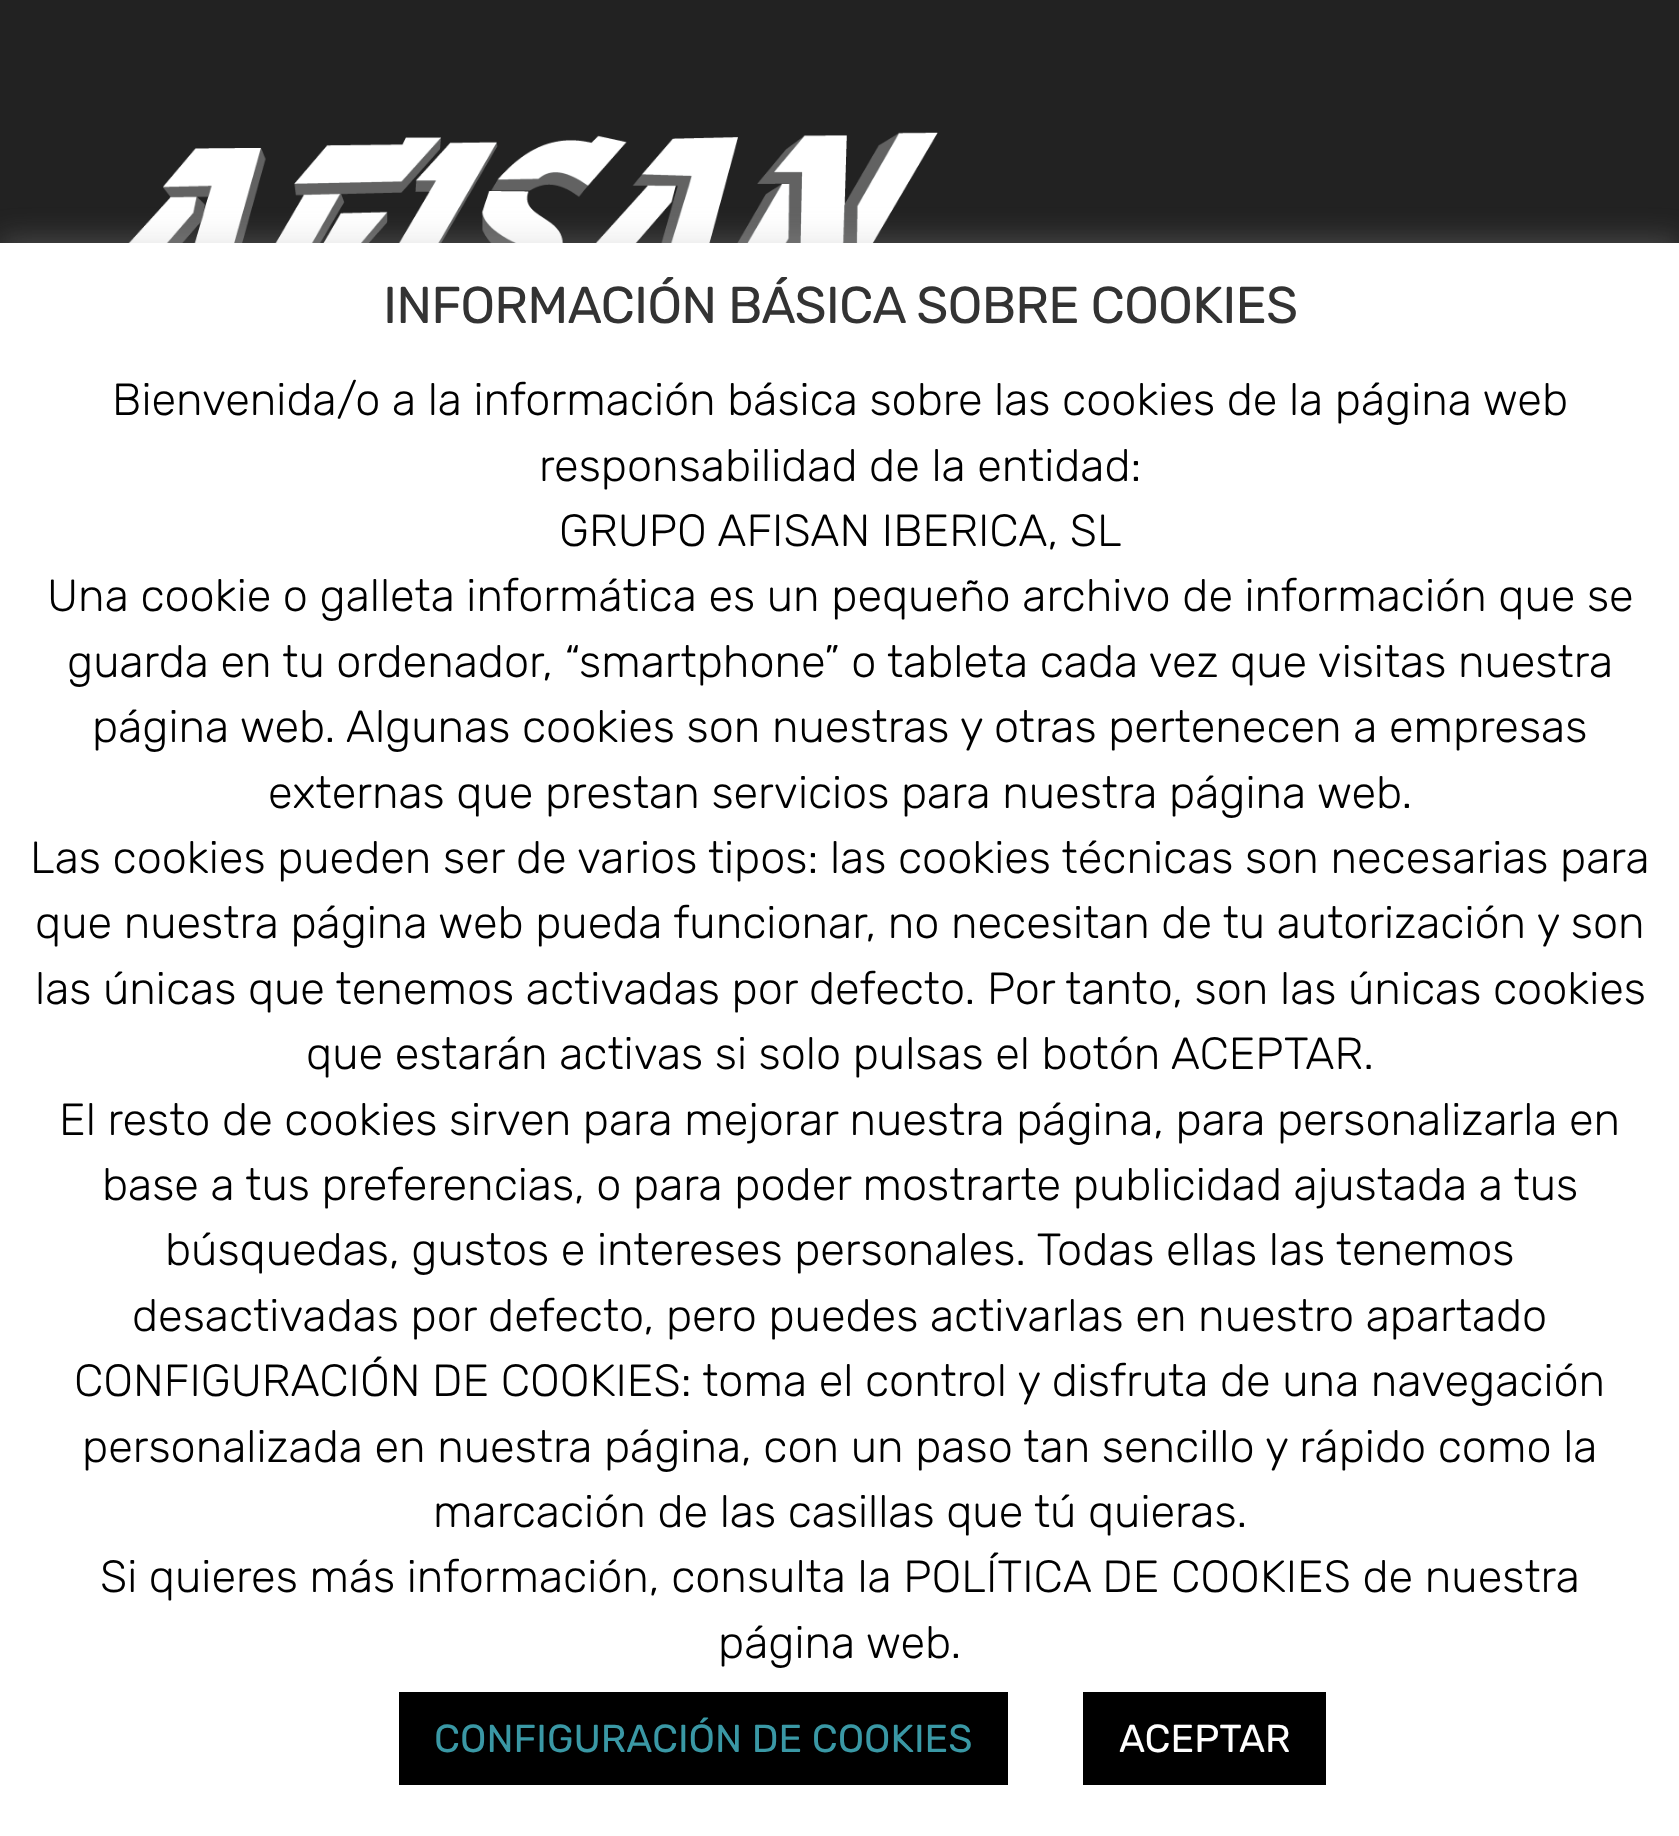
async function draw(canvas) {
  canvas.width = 1679
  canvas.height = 1836
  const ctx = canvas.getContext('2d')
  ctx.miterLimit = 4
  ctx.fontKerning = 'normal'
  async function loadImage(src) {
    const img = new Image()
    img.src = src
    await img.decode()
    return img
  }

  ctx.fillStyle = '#222'
  ctx.fillRect(0, 0, 1679, 1836)
  ctx.drawImage(await loadImage('image0.png'), 128, 132, 810, 111)
  ctx.fillStyle = '#acabab4d'
  ctx.filter = 'blur(15px)'
  ctx.beginPath()
  ctx.rect(0, 240, 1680, 1593)
  ctx.fill()
  ctx.filter = 'none'
  ctx.fillStyle = '#fff'
  ctx.fillRect(0, 243, 1679, 1593)
  ctx.letterSpacing = '-0.9px'
  ctx.font = '51.7px Rubik'
  ctx.fillStyle = '#333'
  ctx.fillText('INFORMACIÓN BÁSICA SOBRE COOKIES', 383, 323)
  ctx.letterSpacing = '0px'
  ctx.font = '300 45px Rubik'
  ctx.fillStyle = '#000'
  ctx.fillText('Bienvenida/o a la información básica sobre las cookies de la página web', 112, 415)
  ctx.fillText('responsabilidad de la entidad:', 539, 481)
  ctx.fillText('GRUPO AFISAN IBERICA, SL', 559, 546)
  ctx.fillText('Una cookie o galleta informática es un pequeño archivo de información que se', 47, 611)
  ctx.fillText('guarda en tu ordenador, “smartphone” o tableta cada vez que visitas nuestra', 67, 677)
  ctx.fillText('página web. Algunas cookies son nuestras y otras pertenecen a empresas', 92, 742)
  ctx.fillText('externas que prestan servicios para nuestra página web.', 268, 808)
  ctx.fillText('Las cookies pueden ser de varios tipos: las cookies técnicas son necesarias para', 30, 873)
  ctx.fillText('que nuestra página web pueda funcionar, no necesitan de tu autorización y son', 35, 938)
  ctx.fillText('las únicas que tenemos activadas por defecto. Por tanto, son las únicas cookies', 35, 1004)
  ctx.fillText('que estarán activas si solo pulsas el botón ACEPTAR.', 306, 1069)
  ctx.fillText('El resto de cookies sirven para mejorar nuestra página, para personalizarla en', 59, 1135)
  ctx.fillText('base a tus preferencias, o para poder mostrarte publicidad ajustada a tus', 102, 1200)
  ctx.fillText('búsquedas, gustos e intereses personales. Todas ellas las tenemos', 165, 1265)
  ctx.fillText('desactivadas por defecto, pero puedes activarlas en nuestro apartado', 132, 1331)
  ctx.fillText('CONFIGURACIÓN DE COOKIES: toma el control y disfruta de una navegación', 74, 1396)
  ctx.fillText('personalizada en nuestra página, con un paso tan sencillo y rápido como la', 82, 1462)
  ctx.fillText('marcación de las casillas que tú quieras.', 433, 1527)
  ctx.fillText('Si quieres más información, consulta la POLÍTICA DE COOKIES de nuestra', 100, 1592)
  ctx.fillText('página web.', 718, 1658)
  ctx.fillRect(399, 1692, 609, 93)
  ctx.font = '39px Rubik'
  ctx.fillStyle = '#3a98a5'
  ctx.fillText('CONFIGURACIÓN DE COOKIES', 434, 1752)
  ctx.fillStyle = '#000'
  ctx.fillRect(1083, 1692, 243, 93)
  ctx.fillStyle = '#fff'
  ctx.fillText('ACEPTAR', 1119, 1752)
}

draw(document.querySelector('canvas'))
